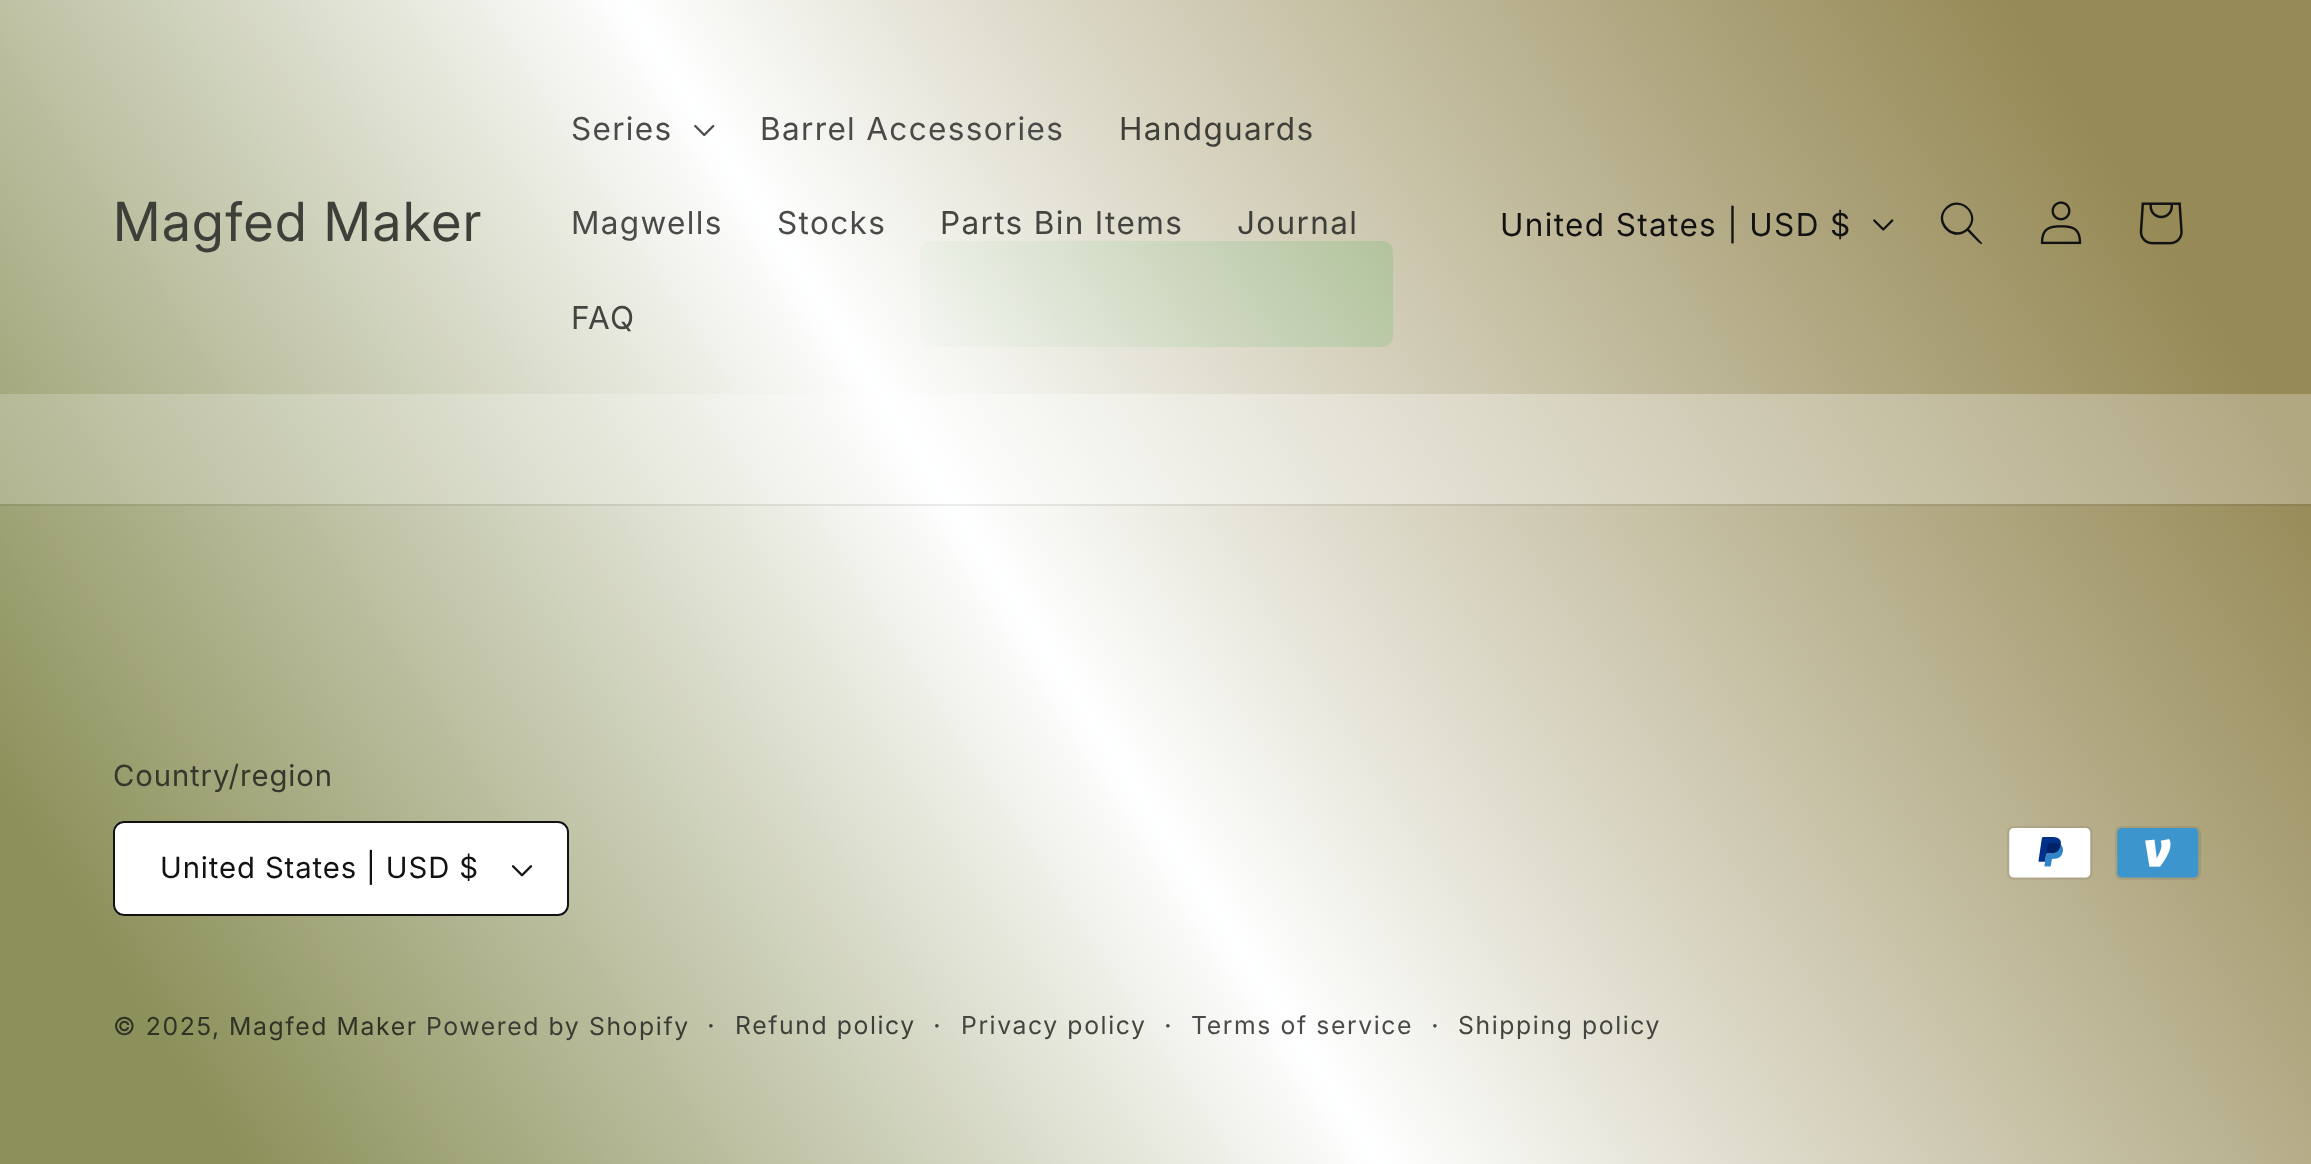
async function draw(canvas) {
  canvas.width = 2311
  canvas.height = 1164
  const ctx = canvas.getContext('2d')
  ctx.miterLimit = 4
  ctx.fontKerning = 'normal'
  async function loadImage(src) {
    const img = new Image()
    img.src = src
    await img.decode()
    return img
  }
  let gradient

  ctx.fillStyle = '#fff'
  ctx.fillRect(0, 0, 2311, 1164)
  gradient = ctx.createLinearGradient(77, 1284, 2236, -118)
  gradient.addColorStop(0.08, '#a2a67a')
  gradient.addColorStop(0.45, '#feffff')
  gradient.addColorStop(0.9, '#b1a882')
  ctx.fillStyle = gradient
  ctx.fillRect(0, 0, 2311, 1164)
  ctx.fillStyle = '#2eb94f'
  ctx.beginPath()
  ctx.roundRect(921, 242, 471, 104, 10)
  ctx.fill()
  ctx.strokeStyle = '#2eb94f'
  ctx.lineWidth = 2
  ctx.stroke()
  gradient = ctx.createLinearGradient(77, 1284, 2236, -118)
  gradient.addColorStop(0.08, '#868b52c4')
  gradient.addColorStop(0.45, '#feffff')
  gradient.addColorStop(0.9, '#897b41a8')
  ctx.fillStyle = gradient
  ctx.fillRect(0, 0, 2311, 394)
  ctx.letterSpacing = '1.35px'
  ctx.font = '54px "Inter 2"'
  ctx.fillStyle = '#3e3f38'
  ctx.fillText('Magfed Maker', 113, 241)
  ctx.font = '31.5px Inter'
  ctx.fillStyle = '#4a4a49'
  ctx.fillText('Series', 571, 140)
  ctx.drawImage(await loadImage('image0.png'), 694, 124, 21, 13)
  ctx.fillText('Barrel Accessories', 760, 140)
  ctx.fillStyle = '#3e3f38'
  ctx.fillText('Handguards', 1119, 140)
  ctx.fillStyle = '#4a4a49'
  ctx.fillText('Magwells', 571, 234)
  ctx.fillText('Stocks', 777, 234)
  ctx.fillStyle = '#444440'
  ctx.fillText('Parts Bin Items', 940, 234)
  ctx.fillStyle = '#3e3f38'
  ctx.fillText('Journal', 1237, 234)
  ctx.fillStyle = '#444440'
  ctx.fillText('FAQ', 571, 329)
  ctx.fillStyle = '#121212'
  ctx.fillText('United States | USD $', 1500, 236)
  ctx.drawImage(await loadImage('image1.png'), 1873, 219, 21, 12)
  ctx.beginPath()
  ctx.moveTo(1967, 228)
  ctx.bezierCurveTo(1954, 241, 1935, 221, 1947, 209)
  ctx.bezierCurveTo(1960, 196, 1980, 215, 1967, 228)
  ctx.closePath()
  ctx.moveTo(1967, 231)
  ctx.bezierCurveTo(1952, 244, 1931, 221, 1946, 207)
  ctx.bezierCurveTo(1960, 193, 1983, 214, 1969, 229)
  ctx.lineTo(1982, 243)
  ctx.lineTo(1982, 244)
  ctx.bezierCurveTo(1980, 245, 1969, 232, 1967, 231)
  ctx.closePath()
  ctx.fill('evenodd')
  ctx.drawImage(await loadImage('image2.png'), 2040, 201, 42, 44)
  ctx.drawImage(await loadImage('image3.png'), 2139, 202, 44, 43)
  gradient = ctx.createLinearGradient(77, 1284, 2236, -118)
  gradient.addColorStop(0.08, '#868b52c4')
  gradient.addColorStop(0.45, '#feffff')
  gradient.addColorStop(0.9, '#897b41a8')
  ctx.fillStyle = gradient
  ctx.fillRect(0, 504, 2311, 660)
  ctx.fillStyle = '#12121214'
  ctx.fillRect(0, 504, 2311, 2)
  ctx.letterSpacing = '0.9px'
  ctx.font = '29.25px Inter'
  ctx.fillStyle = '#36372c'
  ctx.fillText('Country/region', 113, 786)
  ctx.fillStyle = '#fff'
  ctx.beginPath()
  ctx.roundRect(113, 821, 456, 95, 11)
  ctx.fill()
  ctx.drawImage(await loadImage('image4.png'), 511, 865, 22, 12)
  ctx.beginPath()
  ctx.roundRect(114, 822, 454, 93, 10)
  ctx.strokeStyle = '#121212'
  ctx.stroke()
  ctx.fillStyle = '#121212'
  ctx.fillText('United States | USD $', 160, 878)
  ctx.drawImage(await loadImage('image5.png'), 2007, 826, 86, 54)
  ctx.drawImage(await loadImage('image6.png'), 2115, 826, 86, 54)
  ctx.letterSpacing = '1.6px'
  ctx.font = '24.75px Inter'
  ctx.fillStyle = '#313225'
  ctx.fillText('© 2025,', 113, 1035)
  ctx.fillText('Magfed Maker', 229, 1035)
  ctx.fillStyle = '#3a3b32'
  ctx.fillText('Powered by Shopify', 426, 1035)
  ctx.font = '27px Inter'
  ctx.fillStyle = '#3e3f38'
  ctx.fillText('·', 707, 1035)
  ctx.font = '24.75px Inter'
  ctx.fillText('Refund policy', 735, 1034)
  ctx.font = '27px Inter'
  ctx.fillStyle = '#444440'
  ctx.fillText('·', 933, 1035)
  ctx.font = '24.75px Inter'
  ctx.fillText('Privacy policy', 961, 1034)
  ctx.font = '27px Inter'
  ctx.fillStyle = '#4a4a49'
  ctx.fillText('·', 1164, 1035)
  ctx.font = '24.75px Inter'
  ctx.fillText('Terms of service', 1191, 1034)
  ctx.font = '27px Inter'
  ctx.fillText('·', 1431, 1035)
  ctx.font = '24.75px Inter'
  ctx.fillStyle = '#444440'
  ctx.fillText('Shipping policy', 1458, 1034)
}

draw(document.querySelector('canvas'))
